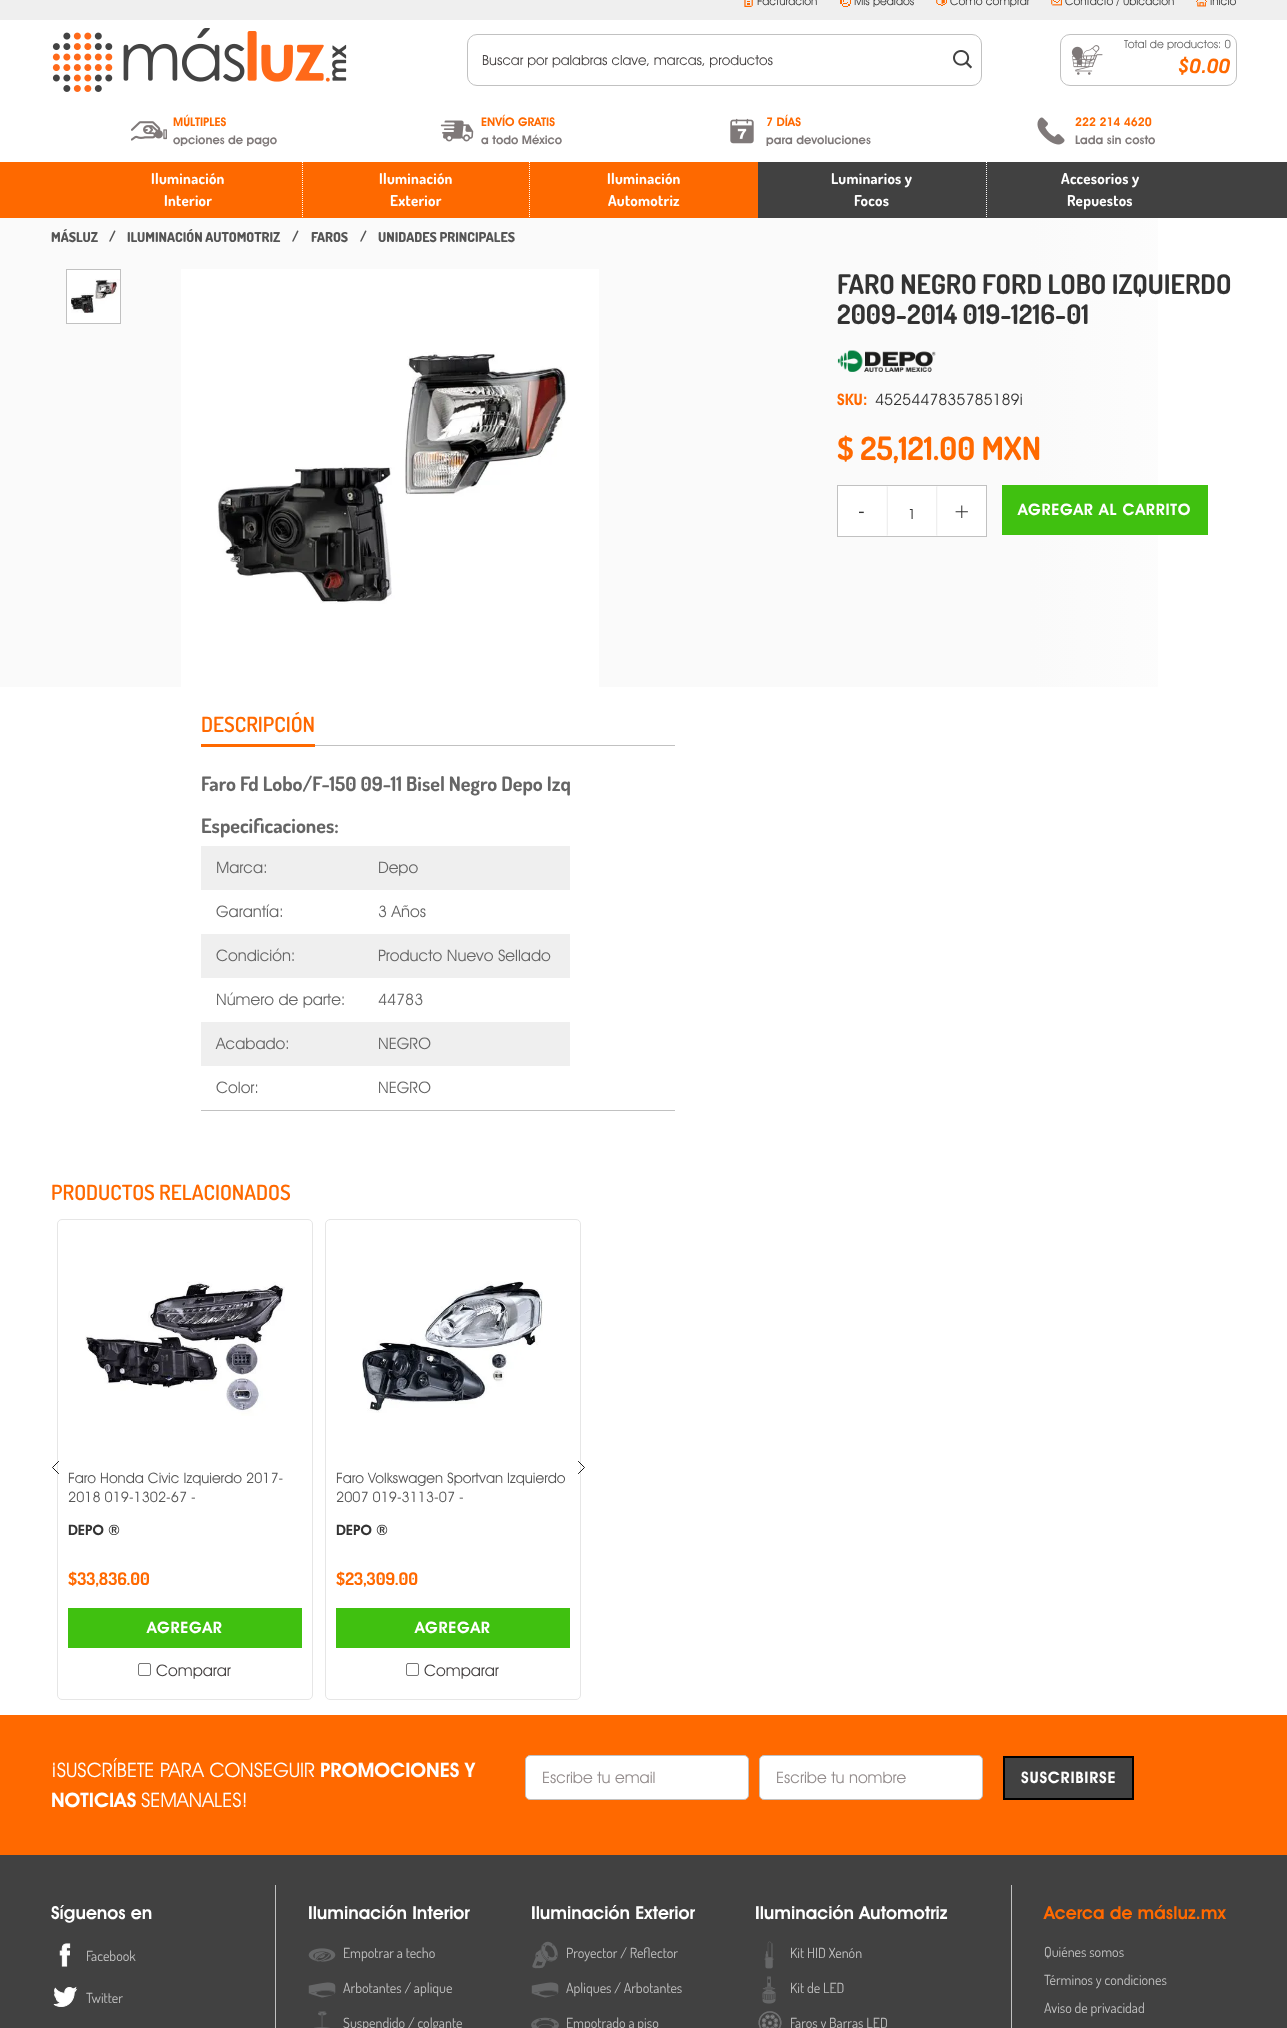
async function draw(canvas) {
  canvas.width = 1287
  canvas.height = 2028
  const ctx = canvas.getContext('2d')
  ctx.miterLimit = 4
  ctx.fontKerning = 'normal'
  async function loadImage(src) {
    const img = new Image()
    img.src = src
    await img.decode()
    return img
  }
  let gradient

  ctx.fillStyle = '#fff'
  ctx.fillRect(0, 0, 1287, 2028)
  ctx.fillStyle = '#efefef'
  ctx.fillRect(0, 0, 1287, 20)
  ctx.drawImage(await loadImage('image0.png'), 744, 0, 9, 7)
  ctx.font = '11.25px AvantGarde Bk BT'
  ctx.fillStyle = '#333'
  ctx.fillText('Facturación', 757, 5)
  ctx.drawImage(await loadImage('image1.png'), 840, 0, 11, 7)
  ctx.fillText('Mis pedidos', 854, 5)
  ctx.drawImage(await loadImage('image2.png'), 936, 0, 11, 6)
  ctx.fillText('Cómo comprar', 950, 5)
  ctx.drawImage(await loadImage('image3.png'), 1051, 0, 11, 6)
  ctx.fillText('Contacto / Ubicación', 1065, 5)
  ctx.drawImage(await loadImage('image4.png'), 1196, 0, 11, 7)
  ctx.fillText('Inicio', 1210, 5)
  ctx.drawImage(await loadImage('image5.png'), 52, 28, 295, 64)
  ctx.beginPath()
  ctx.roundRect(467.5, 34.5, 514, 51, 9.5)
  ctx.strokeStyle = '#c1c1c1'
  ctx.stroke()
  ctx.font = '14px AvantGarde Bk BT'
  ctx.fillStyle = '#454141'
  ctx.fillText('Buscar por palabras clave, marcas, productos', 482, 65)
  ctx.drawImage(await loadImage('image6.png'), 953, 50, 19, 19)
  ctx.beginPath()
  ctx.roundRect(1060.5, 34.5, 176, 51, 9.5)
  ctx.stroke()
  ctx.drawImage(await loadImage('image7.png'), 1071, 45, 32, 30)
  ctx.font = '11.25px AvantGarde Bk BT'
  ctx.fillStyle = '#656565'
  ctx.fillText('Total de productos: 0', 1124, 48)
  ctx.font = 'italic bold 20px AvantGarde Bk BT'
  ctx.fillStyle = '#ff6900'
  ctx.fillText('$0.00', 1178, 73)
  ctx.drawImage(await loadImage('image8.png'), 131, 121, 36, 20)
  ctx.font = 'bold 12px AvantGarde Bk BT'
  ctx.fillText('MÚLTIPLES', 173, 126)
  ctx.fillStyle = '#7f7979'
  ctx.fillText('opciones de pago', 173, 144)
  ctx.drawImage(await loadImage('image9.png'), 440, 120, 34, 22)
  ctx.fillStyle = '#ff6900'
  ctx.fillText('ENVÍO GRATIS', 481, 126)
  ctx.fillStyle = '#7f7979'
  ctx.fillText('a todo México', 481, 144)
  ctx.drawImage(await loadImage('image10.png'), 730, 118, 24, 26)
  ctx.fillStyle = '#ff6900'
  ctx.fillText('7 DÍAS', 766, 126)
  ctx.fillStyle = '#7f7979'
  ctx.fillText('para devoluciones', 766, 144)
  ctx.drawImage(await loadImage('image11.png'), 1037, 117, 28, 28)
  ctx.fillStyle = '#ff6900'
  ctx.fillText('222 214 4620', 1075, 126)
  ctx.fillStyle = '#7f7979'
  ctx.fillText('Lada sin costo', 1075, 144)
  ctx.drawImage(await loadImage('image12.png'), 0, 162, 1287, 56)
  ctx.letterSpacing = '0.25px'
  ctx.font = 'bold 15px Dosis'
  ctx.fillStyle = '#fff'
  ctx.fillText('Iluminación', 151, 184)
  ctx.fillText('Interior', 164, 206)
  ctx.beginPath()
  ctx.moveTo(529.5, 162)
  ctx.lineTo(529.5, 218)
  ctx.strokeStyle = '#fff'
  ctx.setLineDash([1, 1])
  ctx.stroke()
  ctx.beginPath()
  ctx.moveTo(302.5, 162)
  ctx.lineTo(302.5, 218)
  ctx.stroke()
  ctx.fillText('Iluminación', 379, 184)
  ctx.fillText('Exterior', 390, 206)
  ctx.fillText('Iluminación', 607, 184)
  ctx.fillText('Automotriz', 608, 206)
  ctx.fillStyle = '#414141'
  ctx.fillRect(758, 162, 129, 56)
  ctx.fillStyle = '#fff'
  ctx.fillText('Luminarios y', 831, 184)
  ctx.fillText('Focos', 854, 206)
  ctx.beginPath()
  ctx.moveTo(986.5, 162)
  ctx.lineTo(986.5, 218)
  ctx.stroke()
  ctx.fillText('Accesorios y', 1061, 184)
  ctx.fillText('Repuestos', 1067, 206)
  gradient = ctx.createLinearGradient(0, 453, 1287, 452)
  gradient.addColorStop(0.8, '#fafafa')
  gradient.addColorStop(1, '#fff')
  ctx.fillStyle = gradient
  ctx.fillRect(0, 218, 1158, 469)
  ctx.letterSpacing = '0px'
  ctx.font = '800 13.6px Dosis'
  ctx.fillStyle = '#555'
  ctx.fillText('MÁSLUZ', 51, 242)
  ctx.fillText('/', 109, 241)
  ctx.fillText('ILUMINACIÓN AUTOMOTRIZ', 127, 242)
  ctx.fillText('/', 292, 241)
  ctx.fillText('FAROS', 311, 242)
  ctx.fillText('/', 360, 241)
  ctx.fillText('UNIDADES PRINCIPALES', 378, 242)
  ctx.fillStyle = '#fff'
  ctx.fillRect(67, 270, 53, 53)
  ctx.drawImage(await loadImage('image13.png'), 71, 279, 49, 34)
  ctx.strokeStyle = '#c1c1c1'
  ctx.setLineDash([])
  ctx.strokeRect(66.5, 269.5, 54, 54)
  ctx.fillRect(181, 269, 418, 418)
  ctx.drawImage(await loadImage('image14.png'), 217, 352, 350, 252)
  ctx.font = 'bold 27px Dosis'
  ctx.fillStyle = '#333'
  ctx.fillText('FARO NEGRO FORD LOBO IZQUIERDO', 837, 294)
  ctx.fillText('2009-2014 019-1216-01', 837, 324)
  ctx.drawImage(await loadImage('image15.png'), 837, 350, 99, 22)
  ctx.font = 'bold 16px AvantGarde Bk BT'
  ctx.fillStyle = '#ff6900'
  ctx.fillText('SKU:', 837, 405)
  ctx.font = '16px AvantGarde Bk BT'
  ctx.fillStyle = '#333'
  ctx.fillText('4525447835785189i', 875, 405)
  ctx.font = 'bold 32px Dosis'
  ctx.fillStyle = '#ff6900'
  ctx.fillText('$ 25,121.00 MXN', 837, 460)
  ctx.strokeRect(837.5, 485.5, 149, 51)
  ctx.fillStyle = '#fff'
  ctx.fillRect(838, 486, 48, 50)
  ctx.font = '21px AvantGarde Bk BT'
  ctx.fillStyle = '#333'
  ctx.fillText('-', 858, 518)
  ctx.fillStyle = '#fff'
  ctx.fillRect(887, 486, 50, 50)
  ctx.fillStyle = '#efefef'
  ctx.beginPath()
  ctx.moveTo(937, 486)
  ctx.lineTo(937, 536)
  ctx.lineTo(936, 535)
  ctx.lineTo(936, 487)
  ctx.closePath()
  ctx.moveTo(887, 536)
  ctx.lineTo(887, 486)
  ctx.lineTo(888, 487)
  ctx.lineTo(888, 535)
  ctx.closePath()
  ctx.fill()
  ctx.font = '14px AvantGarde Bk BT'
  ctx.fillStyle = '#333'
  ctx.fillText('1', 908, 519)
  ctx.fillStyle = '#fff'
  ctx.fillRect(938, 486, 48, 50)
  ctx.font = '21px AvantGarde Bk BT'
  ctx.fillStyle = '#333'
  ctx.fillText('+', 953, 518)
  ctx.fillStyle = '#40c110'
  ctx.fillRect(1002, 485, 206, 50)
  ctx.letterSpacing = '0.75px'
  ctx.font = 'bold 16px AvantGarde Bk BT'
  ctx.fillStyle = '#fff'
  ctx.fillText('AGREGAR AL CARRITO', 1018, 515)
  ctx.fillStyle = '#c1c1c1'
  ctx.fillRect(315, 745, 360, 1)
  ctx.letterSpacing = '0px'
  ctx.font = '600 21px Dosis'
  ctx.fillStyle = '#ff6900'
  ctx.fillText('DESCRIPCIÓN', 201, 732)
  ctx.fillRect(201, 744, 114, 3)
  ctx.fillStyle = '#c1c1c1'
  ctx.fillRect(201, 1110, 474, 1)
  ctx.font = 'bold 20px Dosis'
  ctx.fillStyle = '#656565'
  ctx.fillText('Faro Fd Lobo/F-150 09-11 Bisel Negro Depo Izq', 201, 791)
  ctx.fillText('Especificaciones:', 201, 833)
  ctx.fillStyle = '#efefef'
  ctx.fillRect(201, 846, 369, 44)
  ctx.font = '16px AvantGarde Bk BT'
  ctx.fillStyle = '#656565'
  ctx.fillText('Marca:', 216, 873)
  ctx.fillText('Depo', 378, 873)
  ctx.fillText('Garantía:', 216, 917)
  ctx.fillText('3 Años', 378, 917)
  ctx.fillStyle = '#efefef'
  ctx.fillRect(201, 934, 369, 44)
  ctx.fillStyle = '#656565'
  ctx.fillText('Condición:', 216, 961)
  ctx.fillText('Producto Nuevo Sellado', 378, 961)
  ctx.fillText('Número de parte:', 216, 1005)
  ctx.fillText('44783', 378, 1005)
  ctx.fillStyle = '#efefef'
  ctx.fillRect(201, 1022, 369, 44)
  ctx.fillStyle = '#656565'
  ctx.fillText('Acabado:', 216, 1049)
  ctx.fillText('NEGRO', 378, 1049)
  ctx.fillText('Color:', 216, 1093)
  ctx.fillText('NEGRO', 378, 1093)
  ctx.font = '600 21px Dosis'
  ctx.fillStyle = '#ff6900'
  ctx.fillText('PRODUCTOS RELACIONADOS', 51, 1200)
  ctx.beginPath()
  ctx.roundRect(57.5, 1219.5, 255, 480, 4.5)
  ctx.strokeStyle = '#e6e6e6'
  ctx.stroke()
  ctx.beginPath()
  ctx.moveTo(58.5, 1461.5)
  ctx.lineTo(52.5, 1467.5)
  ctx.lineTo(58.5, 1473.5)
  ctx.strokeStyle = '#000'
  ctx.lineWidth = 0.9
  ctx.lineCap = 'square'
  ctx.stroke()
  ctx.beginPath()
  ctx.roundRect(325.5, 1219.5, 255, 480, 4.5)
  ctx.strokeStyle = '#e6e6e6'
  ctx.lineWidth = 1
  ctx.stroke()
  ctx.beginPath()
  ctx.moveTo(578.5, 1461.5)
  ctx.lineTo(584.5, 1467.5)
  ctx.lineTo(578.5, 1473.5)
  ctx.strokeStyle = '#000'
  ctx.lineWidth = 0.9
  ctx.stroke()
  ctx.drawImage(await loadImage('image16.png'), 85, 1281, 200, 135)
  ctx.font = '14.4px AvantGarde Bk BT'
  ctx.fillStyle = '#555'
  ctx.fillText('Faro Honda Civic Izquierdo 2017-', 68, 1483)
  ctx.fillText('2018 019-1302-67 -', 68, 1502)
  ctx.font = 'bold 14.4px AvantGarde Bk BT'
  ctx.fillStyle = '#333'
  ctx.fillText('DEPO ®', 68, 1535)
  ctx.font = 'bold 17.5px Dosis'
  ctx.fillStyle = '#ff6900'
  ctx.fillText('$33,836.00', 68, 1585)
  ctx.fillStyle = '#40c110'
  ctx.fillRect(68, 1608, 234, 40)
  ctx.letterSpacing = '0.75px'
  ctx.font = 'bold 16px AvantGarde Bk BT'
  ctx.fillStyle = '#fff'
  ctx.fillText('AGREGAR', 147, 1633)
  ctx.beginPath()
  ctx.roundRect(138.5, 1663.5, 12, 12, 1.5)
  ctx.strokeStyle = '#767676'
  ctx.lineWidth = 1
  ctx.stroke()
  ctx.letterSpacing = '0px'
  ctx.font = '16px AvantGarde Bk BT'
  ctx.fillStyle = '#454141'
  ctx.fillText('Comparar', 156, 1676)
  ctx.drawImage(await loadImage('image17.png'), 362, 1281, 181, 132)
  ctx.font = '14.4px AvantGarde Bk BT'
  ctx.fillStyle = '#555'
  ctx.fillText('Faro Volkswagen Sportvan Izquierdo', 336, 1483)
  ctx.fillText('2007 019-3113-07 -', 336, 1502)
  ctx.font = 'bold 14.4px AvantGarde Bk BT'
  ctx.fillStyle = '#333'
  ctx.fillText('DEPO ®', 336, 1535)
  ctx.font = 'bold 17.5px Dosis'
  ctx.fillStyle = '#ff6900'
  ctx.fillText('$23,309.00', 336, 1585)
  ctx.fillStyle = '#40c110'
  ctx.fillRect(336, 1608, 234, 40)
  ctx.letterSpacing = '0.75px'
  ctx.font = 'bold 16px AvantGarde Bk BT'
  ctx.fillStyle = '#fff'
  ctx.fillText('AGREGAR', 415, 1633)
  ctx.beginPath()
  ctx.roundRect(406.5, 1663.5, 12, 12, 1.5)
  ctx.stroke()
  ctx.letterSpacing = '0px'
  ctx.font = '16px AvantGarde Bk BT'
  ctx.fillStyle = '#454141'
  ctx.fillText('Comparar', 424, 1676)
  ctx.fillStyle = '#ff6900'
  ctx.fillRect(0, 1715, 1287, 140)
  ctx.font = '20px AvantGarde Bk BT'
  ctx.fillStyle = '#fff'
  ctx.fillText('¡SUSCRÍBETE PARA CONSEGUIR', 51, 1777)
  ctx.font = 'bold 20px AvantGarde Bk BT'
  ctx.fillText('PROMOCIONES Y', 320, 1777)
  ctx.fillText('NOTICIAS', 51, 1807)
  ctx.font = '20px AvantGarde Bk BT'
  ctx.fillText('SEMANALES!', 141, 1807)
  ctx.beginPath()
  ctx.roundRect(525.5, 1755.5, 223, 44, 4.5)
  ctx.fill()
  ctx.strokeStyle = '#c1c1c1'
  ctx.stroke()
  ctx.font = '16px AvantGarde Bk BT'
  ctx.fillStyle = '#938c8c'
  ctx.fillText('Escribe tu email', 542, 1783)
  ctx.fillStyle = '#fff'
  ctx.beginPath()
  ctx.roundRect(759.5, 1755.5, 223, 44, 4.5)
  ctx.fill()
  ctx.stroke()
  ctx.fillStyle = '#938c8c'
  ctx.fillText('Escribe tu nombre', 776, 1783)
  ctx.fillStyle = '#414141'
  ctx.beginPath()
  ctx.rect(1004, 1757, 129, 42)
  ctx.fill()
  ctx.strokeStyle = '#000'
  ctx.lineWidth = 2
  ctx.stroke()
  ctx.letterSpacing = '0.75px'
  ctx.font = 'bold 16px AvantGarde Bk BT'
  ctx.fillStyle = '#fff'
  ctx.fillText('SUSCRIBIRSE', 1021, 1783)
  ctx.fillStyle = '#414141'
  ctx.fillRect(0, 1855, 1287, 173)
  ctx.fillStyle = '#c1c1c1'
  ctx.fillRect(275, 1885, 1, 143)
  ctx.letterSpacing = '0px'
  ctx.font = 'bold 18px AvantGarde Bk BT'
  ctx.fillStyle = '#fff'
  ctx.fillText('Síguenos en', 51, 1919)
  ctx.drawImage(await loadImage('image18.png'), 59, 1943, 12, 24)
  ctx.font = '14px Dosis'
  ctx.fillStyle = '#c1c1c1'
  ctx.fillText('Facebook', 86, 1961)
  ctx.drawImage(await loadImage('image19.png'), 53, 1986, 25, 21)
  ctx.fillText('Twitter', 86, 2003)
  ctx.font = 'bold 18px AvantGarde Bk BT'
  ctx.fillStyle = '#fff'
  ctx.fillText('Iluminación Interior', 308, 1919)
  ctx.drawImage(await loadImage('image20.png'), 308, 1948, 28, 14)
  ctx.font = '14px Dosis'
  ctx.fillStyle = '#c1c1c1'
  ctx.fillText('Empotrar a techo', 343, 1958)
  ctx.drawImage(await loadImage('image21.png'), 308, 1982, 28, 16)
  ctx.fillText('Arbotantes / aplique', 343, 1993)
  ctx.drawImage(await loadImage('image22.png'), 314, 2011, 16, 17)
  ctx.fillText('Suspendido / colgante', 343, 2028)
  ctx.font = 'bold 18px AvantGarde Bk BT'
  ctx.fillStyle = '#fff'
  ctx.fillText('Iluminación Exterior', 531, 1919)
  ctx.drawImage(await loadImage('image23.png'), 532, 1941, 26, 28)
  ctx.font = '14px Dosis'
  ctx.fillStyle = '#c1c1c1'
  ctx.fillText('Proyector / Reflector', 566, 1958)
  ctx.drawImage(await loadImage('image21.png'), 531, 1982, 28, 16)
  ctx.fillText('Apliques / Arbotantes', 566, 1993)
  ctx.drawImage(await loadImage('image24.png'), 531, 2017, 28, 11)
  ctx.fillText('Empotrado a piso', 566, 2028)
  ctx.font = 'bold 18px AvantGarde Bk BT'
  ctx.fillStyle = '#fff'
  ctx.fillText('Iluminación Automotriz', 755, 1919)
  ctx.drawImage(await loadImage('image25.png'), 764, 1941, 10, 28)
  ctx.font = '14px Dosis'
  ctx.fillStyle = '#c1c1c1'
  ctx.fillText('Kit HID Xenón', 790, 1958)
  ctx.drawImage(await loadImage('image26.png'), 762, 1976, 14, 28)
  ctx.fillText('Kit de LED', 790, 1993)
  ctx.drawImage(await loadImage('image27.png'), 758, 2011, 24, 17)
  ctx.fillText('Faros y Barras LED', 790, 2028)
  ctx.fillRect(1011, 1885, 1, 143)
  ctx.font = 'bold 18px AvantGarde Bk BT'
  ctx.fillStyle = '#ff6900'
  ctx.fillText('Acerca de másluz.mx', 1044, 1919)
  ctx.font = '14px Dosis'
  ctx.fillStyle = '#c1c1c1'
  ctx.fillText('Quiénes somos', 1044, 1957)
  ctx.fillText('Términos y condiciones', 1044, 1985)
  ctx.fillText('Aviso de privacidad', 1044, 2013)
}

draw(document.querySelector('canvas'))
